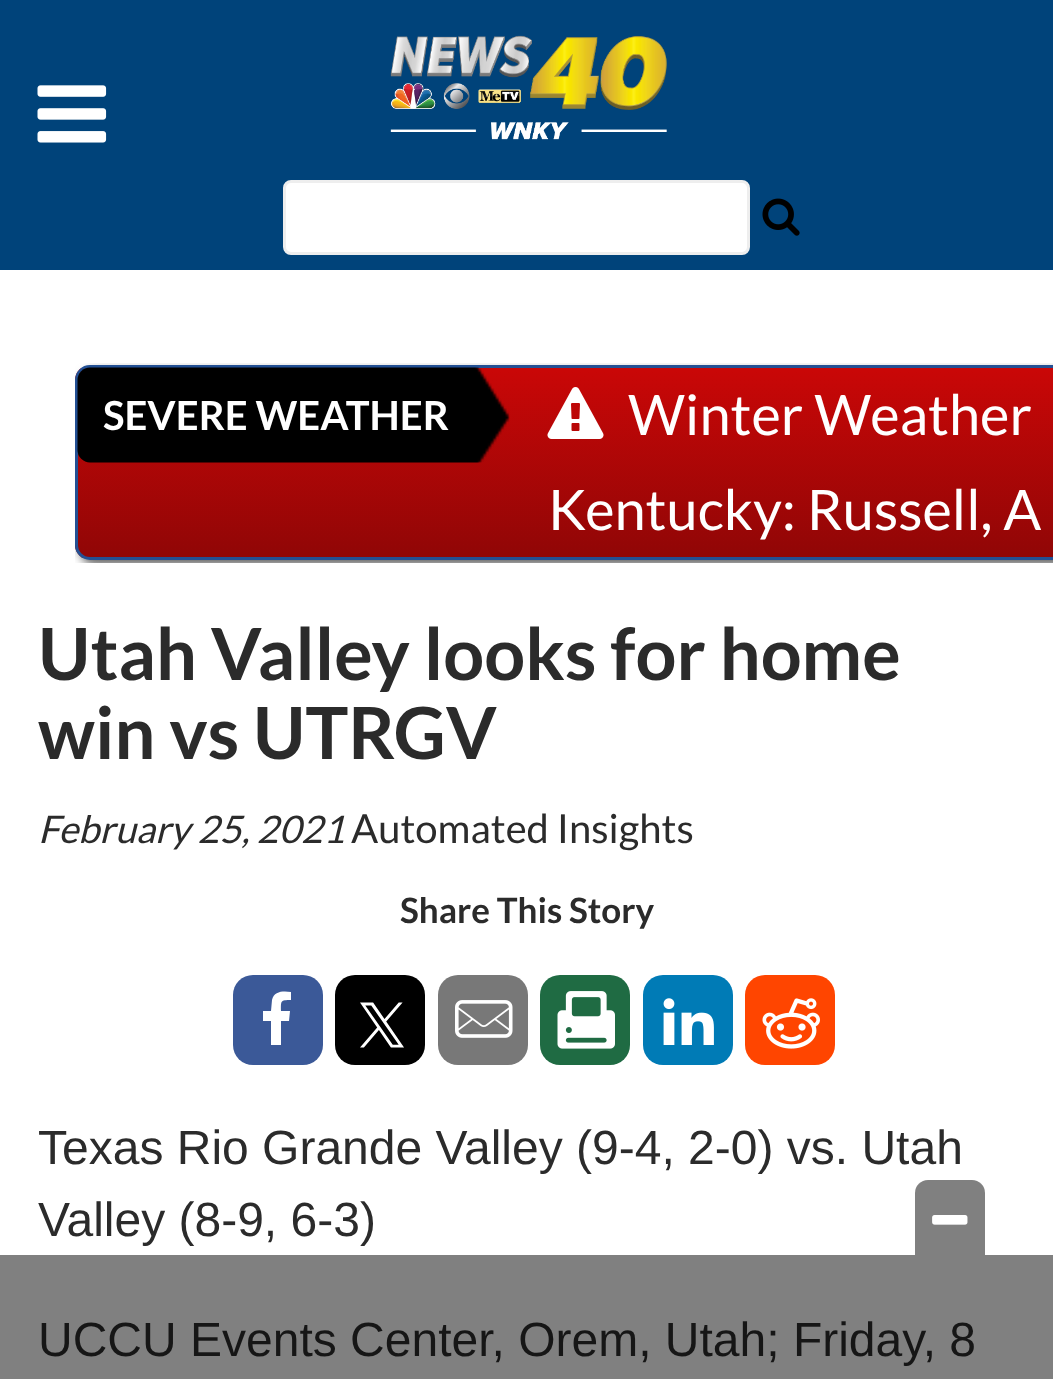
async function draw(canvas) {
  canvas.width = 1053
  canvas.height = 1379
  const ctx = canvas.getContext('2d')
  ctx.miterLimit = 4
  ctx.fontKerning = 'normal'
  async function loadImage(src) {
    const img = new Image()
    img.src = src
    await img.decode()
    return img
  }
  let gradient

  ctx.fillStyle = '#fff'
  ctx.fillRect(0, 0, 1053, 1379)
  ctx.fillStyle = '#808080'
  ctx.fillRect(0, 1255, 1053, 124)
  ctx.fillStyle = '#00437a'
  ctx.fillRect(0, 0, 1053, 270)
  ctx.drawImage(await loadImage('image0.png'), 37, 85, 70, 58)
  ctx.drawImage(await loadImage('image1.png'), 390, 35, 277, 105)
  ctx.fillStyle = '#fff'
  ctx.beginPath()
  ctx.roundRect(284.5, 181.5, 464, 72, 6.5)
  ctx.fill()
  ctx.strokeStyle = '#eee'
  ctx.lineWidth = 3
  ctx.stroke()
  ctx.drawImage(await loadImage('image2.png'), 762, 198, 38, 38)
  ctx.save()
  ctx.beginPath()
  ctx.rect(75, 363, 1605, 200)
  ctx.clip()
  ctx.fillStyle = '#666'
  ctx.filter = 'blur(5px)'
  ctx.beginPath()
  ctx.roundRect(80, 370, 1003, 195, 15)
  ctx.fill()
  ctx.filter = 'none'
  ctx.restore()
  ctx.save()
  ctx.beginPath()
  ctx.roundRect(75, 365, 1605, 195, 15)
  ctx.clip()
  gradient = ctx.createLinearGradient(878, 367, 878, 558)
  gradient.addColorStop(0, '#ca0707')
  gradient.addColorStop(1, '#900606')
  ctx.fillStyle = gradient
  ctx.fillRect(75, 368, 978, 190)
  ctx.restore()
  ctx.beginPath()
  ctx.roundRect(76.5, 366.5, 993, 192, 13.5)
  ctx.strokeStyle = '#235094'
  ctx.stroke()
  ctx.drawImage(await loadImage('image3.png'), 77, 367, 433, 96)
  ctx.font = 'bold 40px Lato'
  ctx.fillText('SEVERE WEATHER', 103, 430)
  ctx.drawImage(await loadImage('image4.png'), 547, 387, 57, 52)
  ctx.font = '56px Lato'
  ctx.fillText('Winter Weather', 628, 435)
  ctx.fillText('Kentucky: Russell, A', 548, 530)
  ctx.fillStyle = '#808080'
  ctx.beginPath()
  ctx.roundRect(915, 1180, 70, 75, [13, 13, 0, 0])
  ctx.fill()
  ctx.drawImage(await loadImage('image5.png'), 932, 1215, 36, 10)
  ctx.font = 'bold 72px Lato'
  ctx.fillStyle = '#2b2b2b'
  ctx.fillText('Utah Valley looks for home', 38, 680)
  ctx.fillText('win vs UTRGV', 38, 759)
  ctx.font = 'italic 38px Lato'
  ctx.fillText('February 25, 2021', 38, 843)
  ctx.font = '40px Lato'
  ctx.fillText('Automated Insights', 351, 843)
  ctx.font = 'bold 35px Lato'
  ctx.fillText('Share This Story', 400, 923)
  ctx.fillStyle = '#3b5998'
  ctx.beginPath()
  ctx.roundRect(233, 975, 90, 90, 20)
  ctx.fill()
  ctx.fillStyle = '#fff'
  ctx.beginPath()
  ctx.moveTo(291, 992)
  ctx.lineTo(291, 1000)
  ctx.bezierCurveTo(280, 1000, 281, 1001, 281, 1011)
  ctx.lineTo(290, 1011)
  ctx.lineTo(289, 1021)
  ctx.lineTo(281, 1021)
  ctx.lineTo(281, 1045)
  ctx.lineTo(271, 1045)
  ctx.lineTo(271, 1021)
  ctx.lineTo(263, 1021)
  ctx.lineTo(263, 1011)
  ctx.lineTo(271, 1011)
  ctx.lineTo(272, 1000)
  ctx.bezierCurveTo(274, 991, 283, 991, 291, 992)
  ctx.closePath()
  ctx.fill()
  ctx.fillStyle = '#000'
  ctx.beginPath()
  ctx.roundRect(335, 975, 90, 90, 20)
  ctx.fill()
  ctx.drawImage(await loadImage('image6.png'), 360, 1002, 44, 46)
  ctx.fillStyle = '#787878'
  ctx.beginPath()
  ctx.roundRect(438, 975, 90, 90, 20)
  ctx.fill()
  ctx.drawImage(await loadImage('image7.png'), 455, 1000, 58, 38)
  ctx.fillStyle = '#1f6b43'
  ctx.beginPath()
  ctx.roundRect(540, 975, 90, 90, 20)
  ctx.fill()
  ctx.drawImage(await loadImage('image8.png'), 557, 991, 58, 58)
  ctx.fillStyle = '#007bb6'
  ctx.beginPath()
  ctx.roundRect(643, 975, 90, 90, 20)
  ctx.fill()
  ctx.drawImage(await loadImage('image9.png'), 663, 998, 51, 47)
  ctx.fillStyle = '#ff4500'
  ctx.beginPath()
  ctx.roundRect(745, 975, 90, 90, 20)
  ctx.fill()
  ctx.drawImage(await loadImage('image10.png'), 762, 998, 58, 51)
  ctx.font = '48px Liberation Sans'
  ctx.fillStyle = '#2b2b2b'
  ctx.fillText('Texas Rio Grande Valley (9-4, 2-0) vs. Utah', 38, 1164)
  ctx.fillText('Valley (8-9, 6-3)', 38, 1236)
  ctx.fillStyle = '#161616'
  ctx.fillText('UCCU Events Center, Orem, Utah; Friday, 8', 38, 1356)
}

draw(document.querySelector('canvas'))
